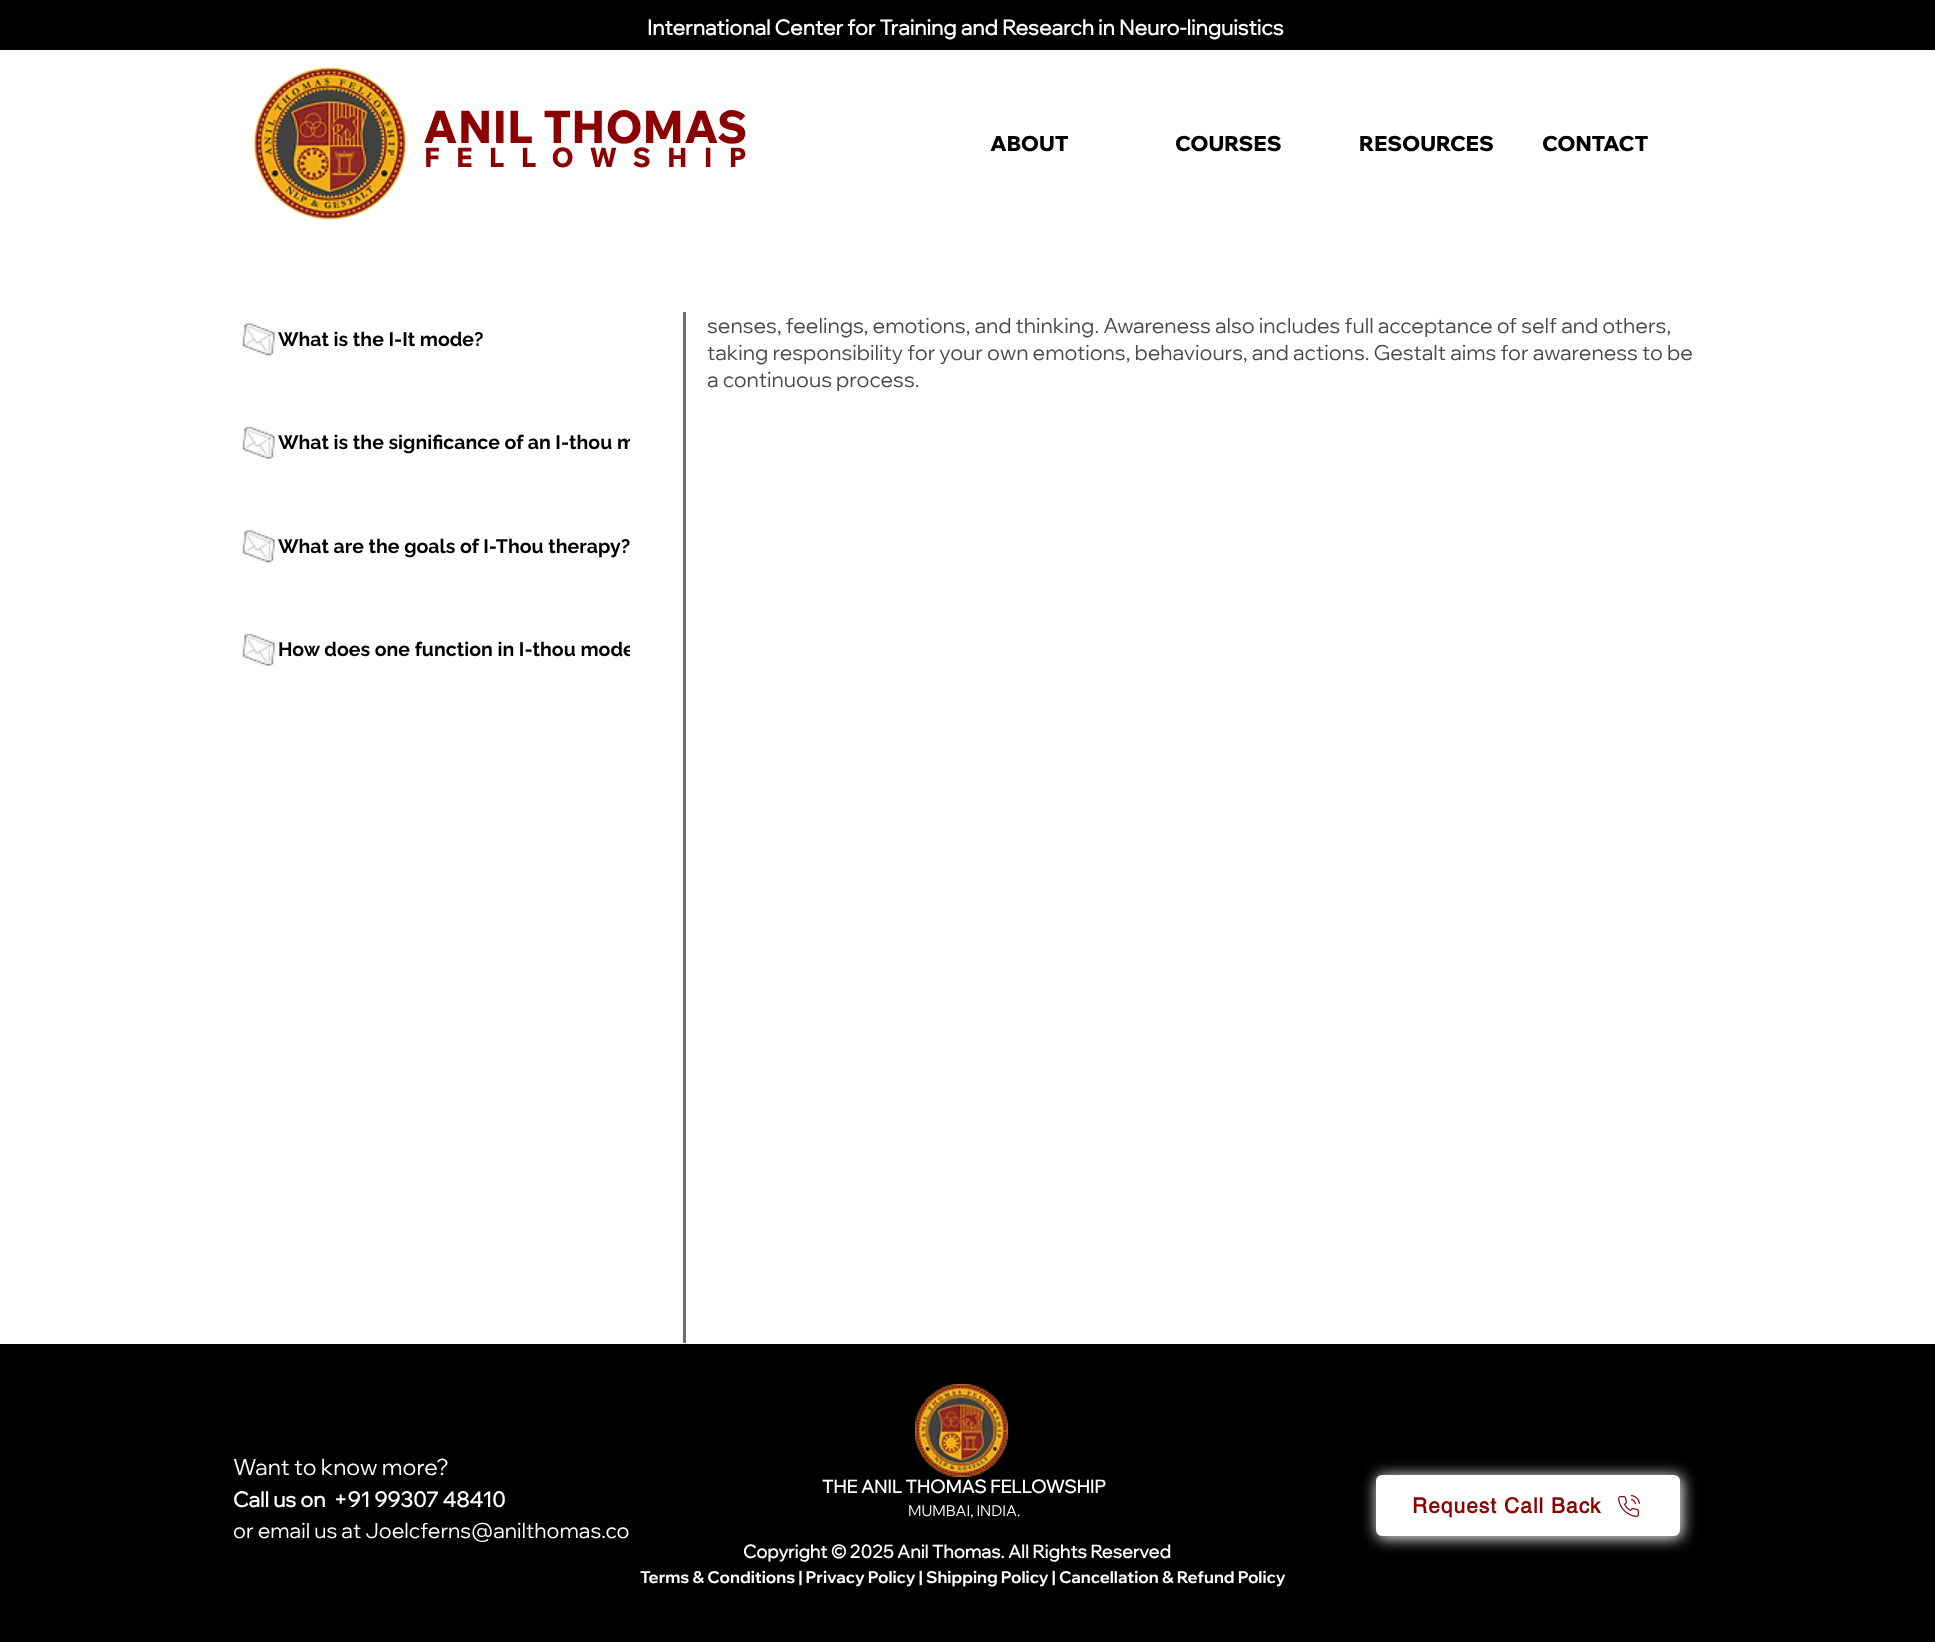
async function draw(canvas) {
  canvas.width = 1935
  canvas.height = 1642
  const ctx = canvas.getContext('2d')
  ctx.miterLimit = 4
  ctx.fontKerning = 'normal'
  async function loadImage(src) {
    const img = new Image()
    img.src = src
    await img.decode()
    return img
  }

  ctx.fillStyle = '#fff'
  ctx.fillRect(0, 0, 1935, 1642)
  ctx.fillStyle = '#000'
  ctx.fillRect(0, 0, 1935, 50)
  ctx.font = 'bold 21px Wix Madefor Display'
  ctx.fillStyle = '#fff'
  ctx.fillText('International Center for Training and Research in Neuro-linguistics', 647, 35)
  ctx.drawImage(await loadImage('image0.png'), 253, 66, 154, 155)
  ctx.font = '800 45px Wix Madefor Text'
  ctx.fillStyle = '#8b0000'
  ctx.fillText('ANIL THOMAS', 423, 143)
  ctx.letterSpacing = '16.25px'
  ctx.font = '800 27px Wix Madefor Text'
  ctx.fillText('FELLOWSHIP', 424, 167)
  ctx.letterSpacing = '0px'
  ctx.font = '800 21px Wix Madefor Display'
  ctx.fillStyle = '#000'
  ctx.fillText('ABOUT', 990, 151)
  ctx.fillText('COURSES', 1175, 151)
  ctx.fillText('RESOURCES', 1359, 151)
  ctx.fillText('CONTACT', 1542, 151)
  ctx.drawImage(await loadImage('image1.png'), 242, 323, 33, 33)
  ctx.font = 'bold 19.5px Raleway'
  ctx.fillText('What is the I-It mode?', 278, 346)
  ctx.drawImage(await loadImage('image2.png'), 242, 426, 33, 33)
  ctx.save()
  ctx.beginPath()
  ctx.rect(204, 407, 426, 103)
  ctx.clip()
  ctx.fillText('What is the significance of an I-thou m', 278, 449)
  ctx.restore()
  ctx.drawImage(await loadImage('image1.png'), 242, 530, 33, 33)
  ctx.fillText('What are the goals of I-Thou therapy?', 278, 553)
  ctx.drawImage(await loadImage('image2.png'), 242, 633, 33, 33)
  ctx.save()
  ctx.beginPath()
  ctx.rect(204, 614, 426, 103)
  ctx.clip()
  ctx.fillText('How does one function in I-thou mode', 278, 656)
  ctx.restore()
  ctx.fillStyle = '#717070'
  ctx.fillRect(683, 312, 3, 1031)
  ctx.font = '21px Wix Madefor Display'
  ctx.fillStyle = '#4a4a4a'
  ctx.fillText('senses, feelings, emotions, and thinking. Awareness also includes full acceptance of self and others,', 707, 333)
  ctx.fillText('taking responsibility for your own emotions, behaviours, and actions. Gestalt aims for awareness to be', 707, 360)
  ctx.fillText('a continuous process.', 707, 387)
  ctx.fillStyle = '#000'
  ctx.fillRect(0, 1344, 1935, 298)
  ctx.font = '22.5px Wix Madefor Display'
  ctx.fillStyle = '#fff'
  ctx.fillText('Want to know more?', 233, 1475)
  ctx.font = 'bold 21px Wix Madefor Display'
  ctx.fillText('Call us on  +91 99307 48410', 233, 1507)
  ctx.font = '21px Wix Madefor Display'
  ctx.fillText('or email us at Joelcferns@anilthomas.co', 233, 1538)
  ctx.drawImage(await loadImage('image3.png'), 915, 1384, 93, 93)
  ctx.font = 'bold 18px Wix Madefor Display'
  ctx.fillText('THE ANIL THOMAS FELLOWSHIP', 822, 1493)
  ctx.font = '15px Wix Madefor Display'
  ctx.fillText('MUMBAI, INDIA.', 908, 1516)
  ctx.filter = 'blur(7.5px)'
  ctx.beginPath()
  ctx.roundRect(1377, 1476, 305, 62, 6)
  ctx.fill()
  ctx.filter = 'none'
  ctx.beginPath()
  ctx.roundRect(1377, 1476, 302, 59, 5)
  ctx.fill()
  ctx.strokeStyle = '#fff'
  ctx.lineWidth = 2
  ctx.stroke()
  ctx.letterSpacing = '1px'
  ctx.font = 'bold 21px helvetica'
  ctx.fillStyle = '#8b0000'
  ctx.fillText('Request Call Back', 1412, 1513)
  ctx.drawImage(await loadImage('image4.png'), 1618, 1495, 22, 22)
  ctx.letterSpacing = '0px'
  ctx.font = 'bold 18px Wix Madefor Display'
  ctx.fillStyle = '#fff'
  ctx.fillText('Copyright © 2025 Anil Thomas. All Rights Reserved', 743, 1558)
  ctx.font = 'bold 16.5px "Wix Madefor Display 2"'
  ctx.fillText('Terms & Conditions | Privacy Policy | Shipping Policy | Cancellation & Refund Policy', 640, 1583)
}

draw(document.querySelector('canvas'))
